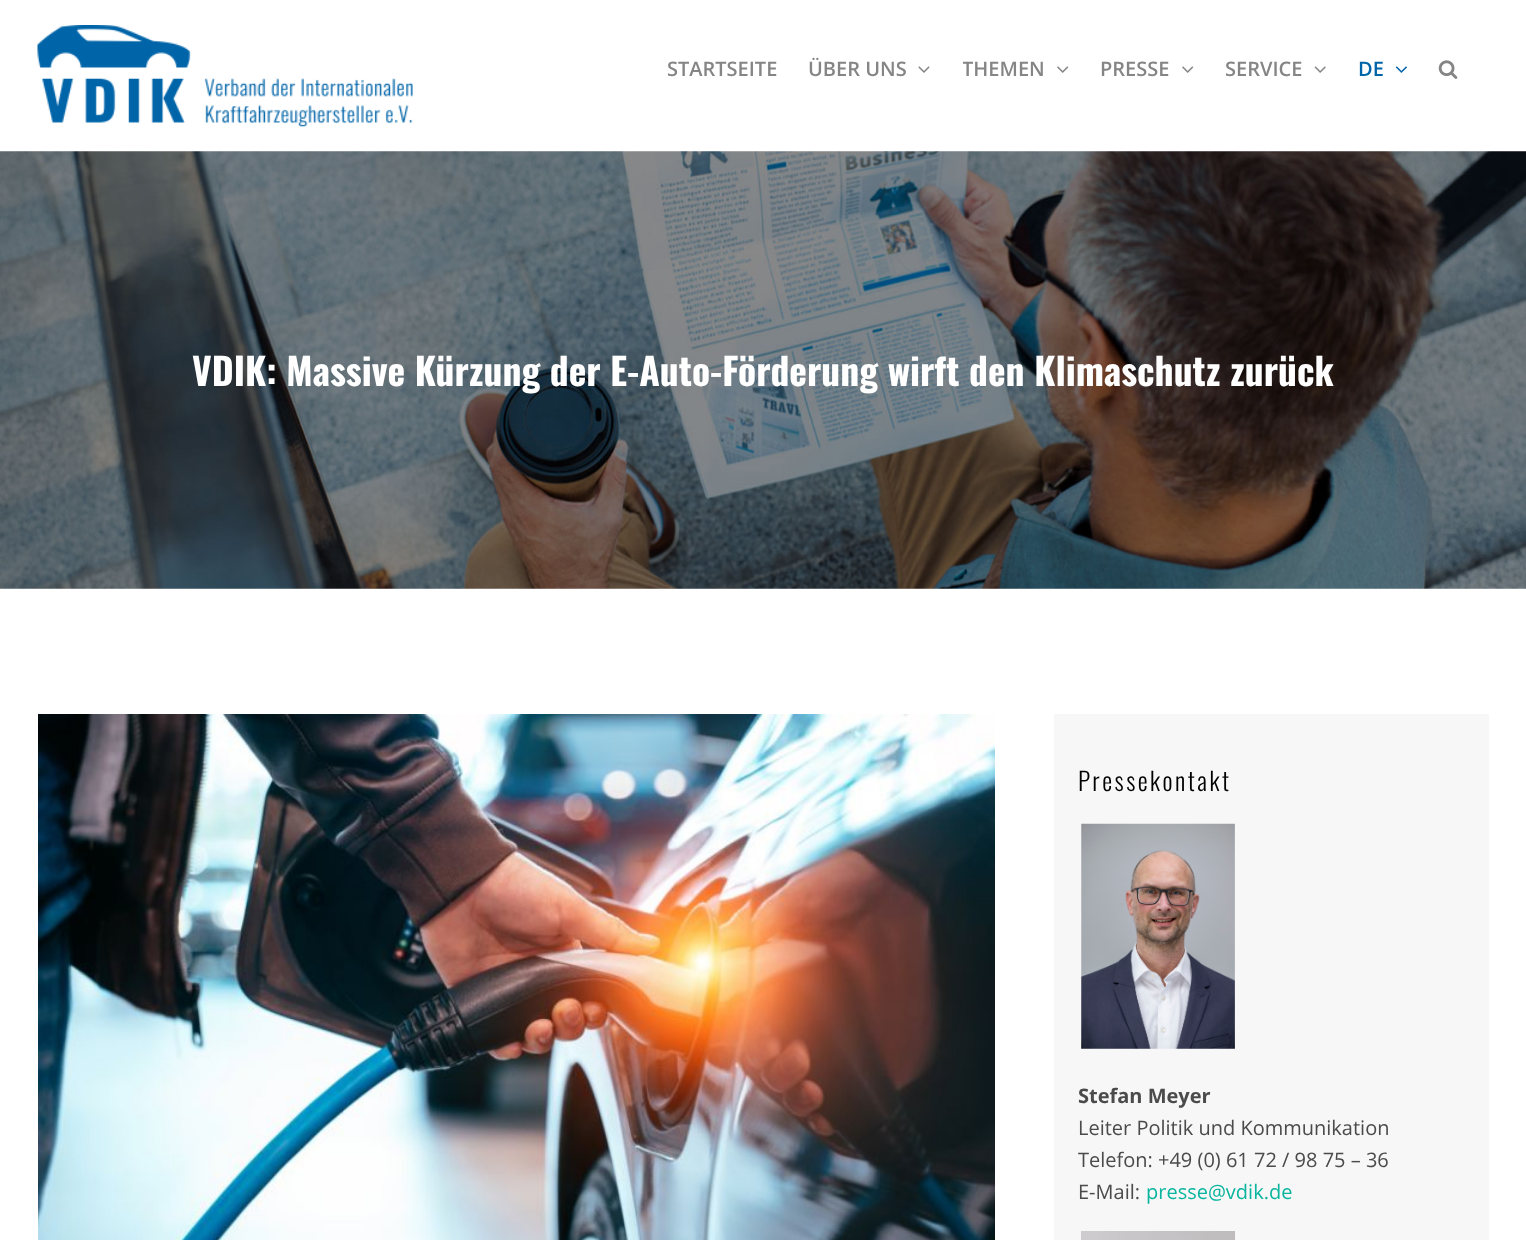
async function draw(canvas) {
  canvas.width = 1526
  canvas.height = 1240
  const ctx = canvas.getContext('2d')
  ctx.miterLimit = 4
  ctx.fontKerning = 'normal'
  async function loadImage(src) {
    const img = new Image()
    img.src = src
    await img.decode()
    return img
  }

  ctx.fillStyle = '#fff'
  ctx.fillRect(0, 0, 1526, 1240)
  ctx.drawImage(await loadImage('image0.png'), 37, 25, 376, 102)
  ctx.font = '600 20px Open Sans'
  ctx.fillStyle = '#858585'
  ctx.fillText('STARTSEITE', 667, 76)
  ctx.fillText('ÜBER UNS', 808, 76)
  ctx.drawImage(await loadImage('image1.png'), 918, 66, 12, 7)
  ctx.save()
  ctx.beginPath()
  ctx.rect(963, 0, 137, 136)
  ctx.clip()
  ctx.fillText('THEMEN', 962, 76)
  ctx.restore()
  ctx.drawImage(await loadImage('image2.png'), 1057, 66, 12, 7)
  ctx.fillText('PRESSE', 1100, 76)
  ctx.drawImage(await loadImage('image2.png'), 1182, 66, 12, 7)
  ctx.fillText('SERVICE', 1225, 76)
  ctx.drawImage(await loadImage('image3.png'), 1314, 66, 12, 7)
  ctx.fillStyle = '#0064a8'
  ctx.fillText('DE', 1358, 76)
  ctx.drawImage(await loadImage('image4.png'), 1395, 66, 12, 7)
  ctx.drawImage(await loadImage('image5.png'), 1438, 60, 20, 19)
  ctx.drawImage(await loadImage('image6.png'), 0, 151, 1526, 438)
  ctx.font = 'bold 37.5px Oswald'
  ctx.fillStyle = '#fff'
  ctx.fillText('VDIK: Massive Kürzung der E-Auto-Förderung wirft den Klimaschutz zurück', 192, 386)
  ctx.drawImage(await loadImage('image7.png'), 38, 714, 957, 526)
  ctx.fillStyle = '#f7f7f7'
  ctx.fillRect(1054, 714, 435, 526)
  ctx.letterSpacing = '2.5px'
  ctx.font = '300 25px Oswald'
  ctx.fillStyle = '#000'
  ctx.fillText('Pressekontakt', 1078, 791)
  ctx.drawImage(await loadImage('image8.png'), 1081, 823, 154, 226)
  ctx.letterSpacing = '0px'
  ctx.font = 'bold 20px Open Sans'
  ctx.fillStyle = '#4b4b4b'
  ctx.fillText('Stefan Meyer', 1078, 1103)
  ctx.font = '20px Open Sans'
  ctx.fillText('Leiter Politik und Kommunikation', 1078, 1135)
  ctx.fillText('Telefon: +49 (0) 61 72 / 98 75 – 36', 1078, 1167)
  ctx.fillText('E-Mail:', 1078, 1199)
  ctx.fillStyle = '#09b59e'
  ctx.fillText('presse@vdik.de', 1146, 1199)
  ctx.drawImage(await loadImage('image9.png'), 1081, 1231, 154, 9)
}

draw(document.querySelector('canvas'))
